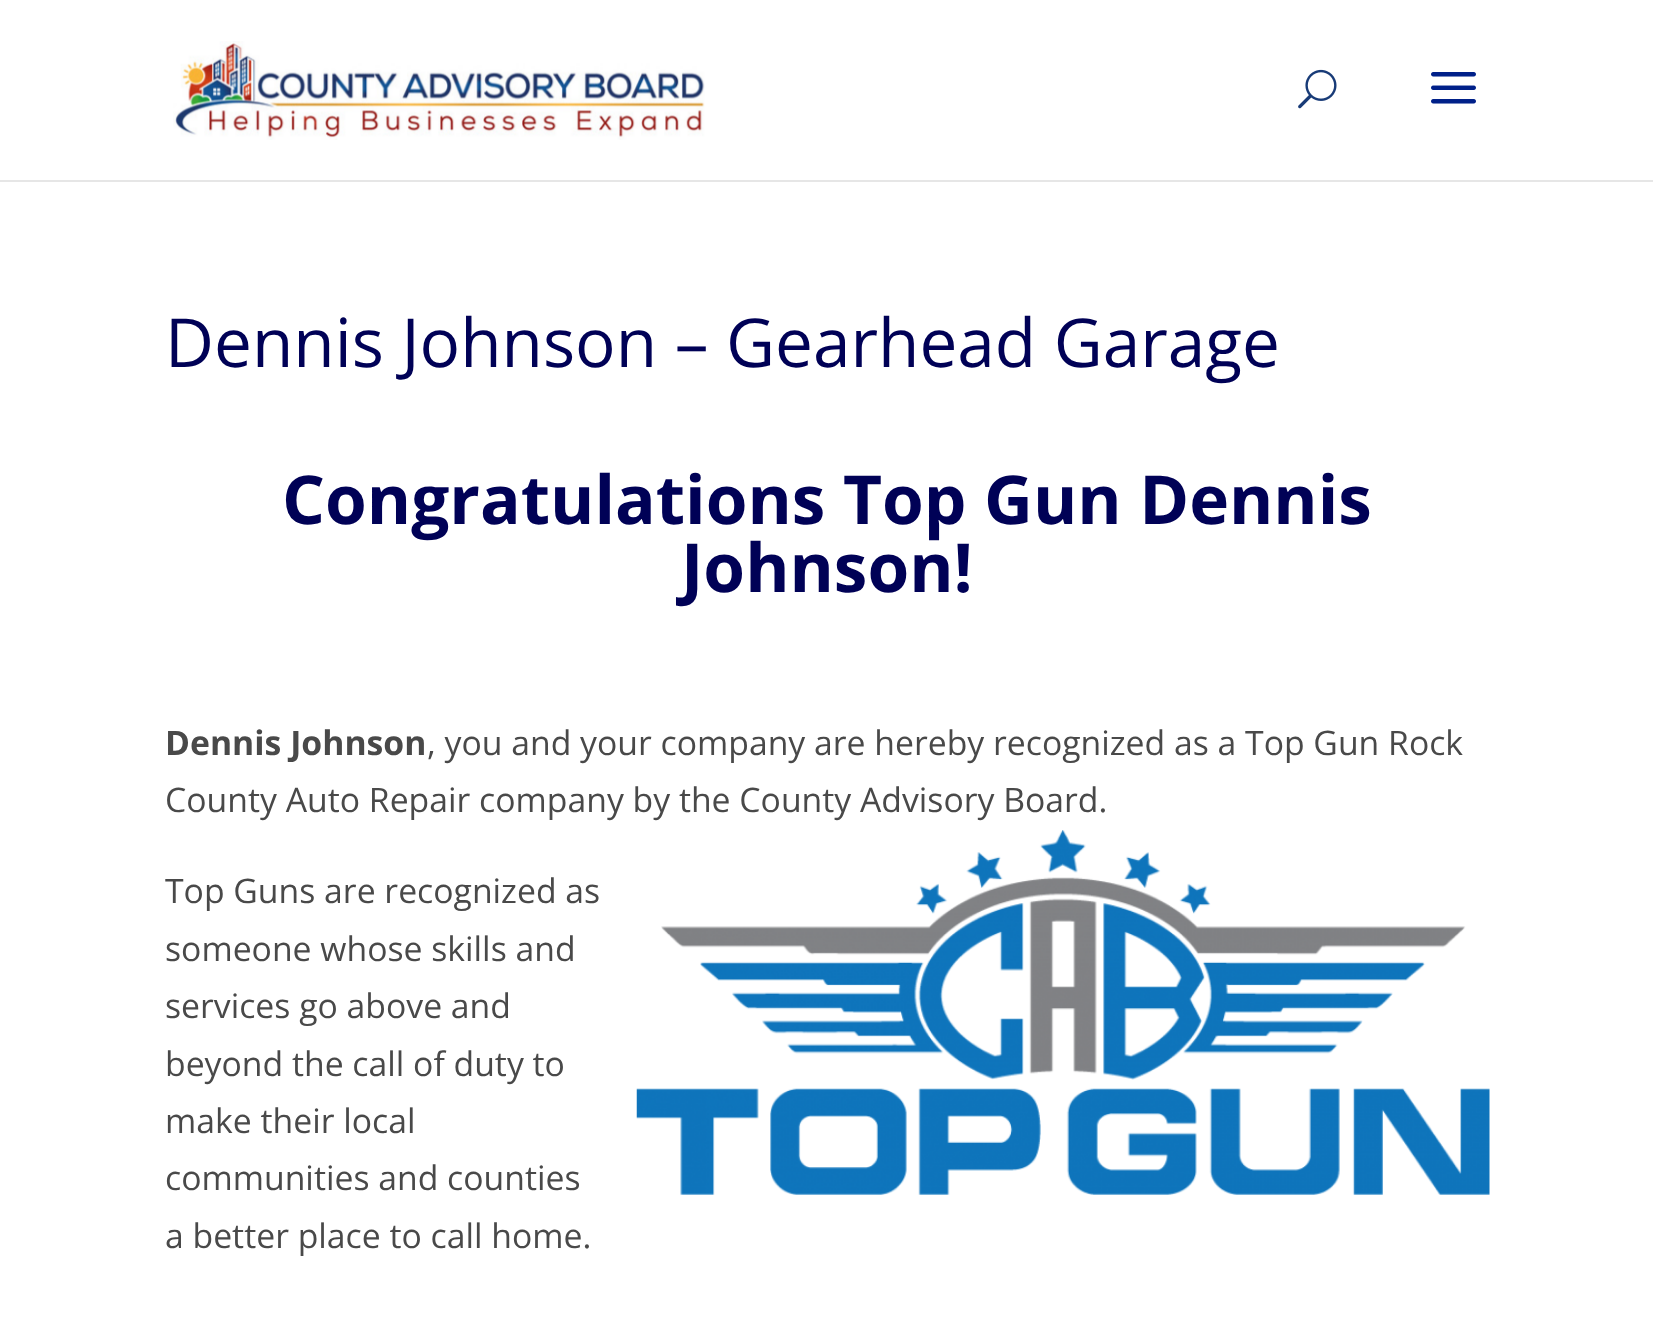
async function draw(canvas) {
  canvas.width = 1653
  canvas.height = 1322
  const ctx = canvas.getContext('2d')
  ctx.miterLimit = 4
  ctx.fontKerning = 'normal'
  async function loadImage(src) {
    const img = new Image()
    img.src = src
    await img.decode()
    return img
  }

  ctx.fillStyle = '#fff'
  ctx.fillRect(0, 0, 1653, 1322)
  ctx.fillStyle = '#e6e6e6'
  ctx.beginPath()
  ctx.moveTo(0, 180)
  ctx.lineTo(0, 182)
  ctx.lineTo(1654, 182)
  ctx.lineTo(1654, 2)
  ctx.lineTo(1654, 180)
  ctx.closePath()
  ctx.fill()
  ctx.drawImage(await loadImage('image0.png'), 173, 41, 532, 99)
  ctx.drawImage(await loadImage('image1.png'), 1298, 69, 39, 40)
  ctx.drawImage(await loadImage('image2.png'), 1431, 72, 45, 32)
  ctx.font = '67.5px Open Sans'
  ctx.fillStyle = '#000156'
  ctx.fillText('Dennis Johnson – Gearhead Garage', 165, 367)
  ctx.font = 'bold 67.5px Open Sans'
  ctx.fillText('Congratulations Top Gun Dennis', 282, 524)
  ctx.fillText('Johnson!', 681, 592)
  ctx.font = 'bold 33.75px Open Sans'
  ctx.fillStyle = '#494949'
  ctx.fillText('Dennis Johnson', 165, 755)
  ctx.font = '33.75px Open Sans'
  ctx.fillText(', you and your company are hereby recognized as a Top Gun Rock', 427, 755)
  ctx.fillText('County Auto Repair company by the County Advisory Board.', 165, 812)
  ctx.drawImage(await loadImage('image3.png'), 636, 830, 854, 365)
  ctx.fillText('Top Guns are recognized as', 165, 903)
  ctx.fillText('someone whose skills and', 165, 961)
  ctx.fillText('services go above and', 165, 1018)
  ctx.fillText('beyond the call of duty to', 165, 1076)
  ctx.fillText('make their local', 165, 1133)
  ctx.fillText('communities and counties', 165, 1190)
  ctx.fillText('a better place to call home.', 165, 1248)
}

draw(document.querySelector('canvas'))
